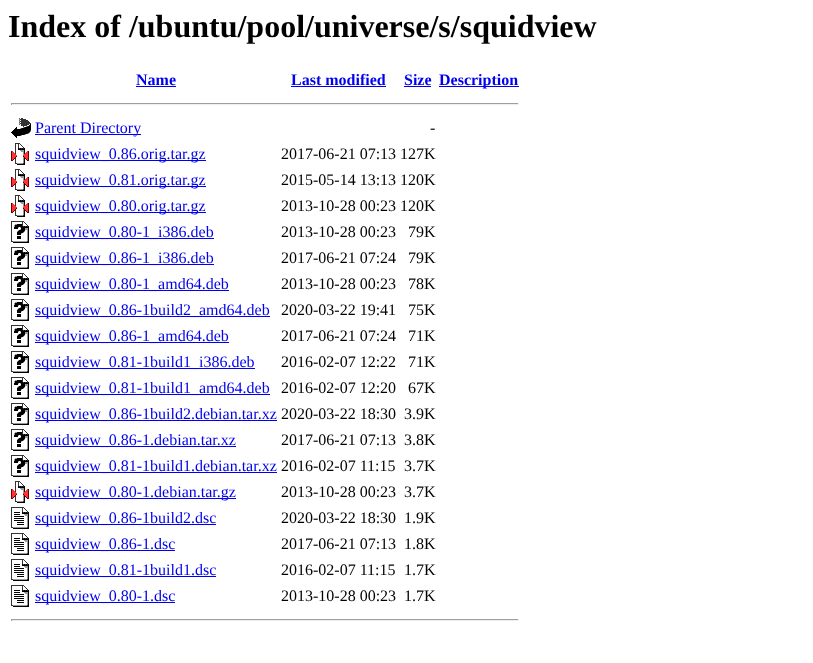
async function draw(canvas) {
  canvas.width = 813
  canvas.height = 663
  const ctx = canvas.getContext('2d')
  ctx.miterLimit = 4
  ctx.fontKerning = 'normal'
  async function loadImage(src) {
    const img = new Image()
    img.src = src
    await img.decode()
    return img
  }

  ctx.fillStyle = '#fff'
  ctx.fillRect(0, 0, 813, 663)
  ctx.font = 'bold 32px Liberation Serif'
  ctx.fillStyle = '#000'
  ctx.fillText('Index of /ubuntu/pool/universe/s/squidview', 8, 37)
  ctx.font = 'bold 16px Liberation Serif'
  ctx.fillStyle = '#00e'
  ctx.fillText('Name', 136, 85)
  ctx.fillRect(136, 86, 40, 1)
  ctx.fillText('Last modified', 291, 85)
  ctx.fillRect(291, 86, 95, 1)
  ctx.fillText('Size', 404, 85)
  ctx.fillRect(404, 86, 27, 1)
  ctx.fillRect(439, 86, 80, 1)
  ctx.fillText('Description', 439, 85)
  ctx.fillStyle = '#9f9f9f'
  ctx.fillRect(11, 103, 508, 1)
  ctx.fillStyle = '#eee'
  ctx.fillRect(518, 103, 1, 2)
  ctx.fillRect(11, 104, 508, 1)
  ctx.fillStyle = '#9f9f9f'
  ctx.fillRect(11, 103, 1, 2)
  ctx.drawImage(await loadImage('image0.png'), 11, 118, 20, 20)
  ctx.fillStyle = '#00e'
  ctx.fillRect(35, 134, 106, 1)
  ctx.font = '16px Liberation Serif'
  ctx.fillText('Parent Directory', 35, 133)
  ctx.fillStyle = '#000'
  ctx.fillText('-', 430, 133)
  ctx.drawImage(await loadImage('image1.png'), 11, 143, 18, 22)
  ctx.fillStyle = '#00e'
  ctx.fillRect(35, 160, 171, 1)
  ctx.fillText('squidview_0.86.orig.tar.gz', 35, 159)
  ctx.fillStyle = '#000'
  ctx.fillText('2017-06-21 07:13 127K', 281, 159)
  ctx.drawImage(await loadImage('image1.png'), 11, 169, 18, 22)
  ctx.fillStyle = '#00e'
  ctx.fillRect(35, 186, 171, 1)
  ctx.fillText('squidview_0.81.orig.tar.gz', 35, 185)
  ctx.fillStyle = '#000'
  ctx.fillText('2015-05-14 13:13 120K', 281, 185)
  ctx.drawImage(await loadImage('image1.png'), 11, 195, 18, 22)
  ctx.fillStyle = '#00e'
  ctx.fillRect(35, 212, 171, 1)
  ctx.fillText('squidview_0.80.orig.tar.gz', 35, 211)
  ctx.fillStyle = '#000'
  ctx.fillText('2013-10-28 00:23 120K', 281, 211)
  ctx.drawImage(await loadImage('image2.png'), 11, 221, 18, 22)
  ctx.fillStyle = '#00e'
  ctx.fillRect(35, 238, 179, 1)
  ctx.fillText('squidview_0.80-1_i386.deb', 35, 237)
  ctx.fillStyle = '#000'
  ctx.fillText('2013-10-28 00:23', 281, 237)
  ctx.fillText('79K', 408, 237)
  ctx.drawImage(await loadImage('image2.png'), 11, 247, 18, 22)
  ctx.fillStyle = '#00e'
  ctx.fillRect(35, 264, 179, 1)
  ctx.fillText('squidview_0.86-1_i386.deb', 35, 263)
  ctx.fillStyle = '#000'
  ctx.fillText('2017-06-21 07:24', 281, 263)
  ctx.fillText('79K', 408, 263)
  ctx.drawImage(await loadImage('image2.png'), 11, 273, 18, 22)
  ctx.fillStyle = '#00e'
  ctx.fillRect(35, 290, 194, 1)
  ctx.fillText('squidview_0.80-1_amd64.deb', 35, 289)
  ctx.fillStyle = '#000'
  ctx.fillText('2013-10-28 00:23', 281, 289)
  ctx.fillText('78K', 408, 289)
  ctx.drawImage(await loadImage('image2.png'), 11, 299, 18, 22)
  ctx.fillStyle = '#00e'
  ctx.fillRect(35, 316, 235, 1)
  ctx.fillText('squidview_0.86-1build2_amd64.deb', 35, 315)
  ctx.fillStyle = '#000'
  ctx.fillText('2020-03-22 19:41', 281, 315)
  ctx.fillText('75K', 408, 315)
  ctx.drawImage(await loadImage('image2.png'), 11, 325, 18, 22)
  ctx.fillStyle = '#00e'
  ctx.fillRect(35, 342, 194, 1)
  ctx.fillText('squidview_0.86-1_amd64.deb', 35, 341)
  ctx.fillStyle = '#000'
  ctx.fillText('2017-06-21 07:24', 281, 341)
  ctx.fillText('71K', 408, 341)
  ctx.drawImage(await loadImage('image2.png'), 11, 351, 18, 22)
  ctx.fillStyle = '#00e'
  ctx.fillRect(35, 368, 220, 1)
  ctx.fillText('squidview_0.81-1build1_i386.deb', 35, 367)
  ctx.fillStyle = '#000'
  ctx.fillText('2016-02-07 12:22', 281, 367)
  ctx.fillText('71K', 408, 367)
  ctx.drawImage(await loadImage('image2.png'), 11, 377, 18, 22)
  ctx.fillStyle = '#00e'
  ctx.fillRect(35, 394, 235, 1)
  ctx.fillText('squidview_0.81-1build1_amd64.deb', 35, 393)
  ctx.fillStyle = '#000'
  ctx.fillText('2016-02-07 12:20', 281, 393)
  ctx.fillText('67K', 408, 393)
  ctx.drawImage(await loadImage('image2.png'), 11, 403, 18, 22)
  ctx.fillStyle = '#00e'
  ctx.fillRect(35, 420, 242, 1)
  ctx.fillText('squidview_0.86-1build2.debian.tar.xz', 35, 419)
  ctx.fillStyle = '#000'
  ctx.fillText('2020-03-22 18:30', 281, 419)
  ctx.fillText('3.9K', 404, 419)
  ctx.drawImage(await loadImage('image2.png'), 11, 429, 18, 22)
  ctx.fillStyle = '#00e'
  ctx.fillRect(35, 446, 201, 1)
  ctx.fillText('squidview_0.86-1.debian.tar.xz', 35, 445)
  ctx.fillStyle = '#000'
  ctx.fillText('2017-06-21 07:13', 281, 445)
  ctx.fillText('3.8K', 404, 445)
  ctx.drawImage(await loadImage('image2.png'), 11, 455, 18, 22)
  ctx.fillStyle = '#00e'
  ctx.fillRect(35, 472, 242, 1)
  ctx.fillText('squidview_0.81-1build1.debian.tar.xz', 35, 471)
  ctx.fillStyle = '#000'
  ctx.fillText('2016-02-07 11:15', 281, 471)
  ctx.fillText('3.7K', 404, 471)
  ctx.drawImage(await loadImage('image1.png'), 11, 481, 18, 22)
  ctx.fillStyle = '#00e'
  ctx.fillRect(35, 498, 201, 1)
  ctx.fillText('squidview_0.80-1.debian.tar.gz', 35, 497)
  ctx.fillStyle = '#000'
  ctx.fillText('2013-10-28 00:23', 281, 497)
  ctx.fillText('3.7K', 404, 497)
  ctx.drawImage(await loadImage('image3.png'), 11, 507, 18, 22)
  ctx.fillStyle = '#00e'
  ctx.fillRect(35, 524, 181, 1)
  ctx.fillText('squidview_0.86-1build2.dsc', 35, 523)
  ctx.fillStyle = '#000'
  ctx.fillText('2020-03-22 18:30', 281, 523)
  ctx.fillText('1.9K', 404, 523)
  ctx.drawImage(await loadImage('image3.png'), 11, 533, 18, 22)
  ctx.fillStyle = '#00e'
  ctx.fillRect(35, 550, 140, 1)
  ctx.fillText('squidview_0.86-1.dsc', 35, 549)
  ctx.fillStyle = '#000'
  ctx.fillText('2017-06-21 07:13', 281, 549)
  ctx.fillText('1.8K', 404, 549)
  ctx.drawImage(await loadImage('image3.png'), 11, 559, 18, 22)
  ctx.fillStyle = '#00e'
  ctx.fillRect(35, 576, 181, 1)
  ctx.fillText('squidview_0.81-1build1.dsc', 35, 575)
  ctx.fillStyle = '#000'
  ctx.fillText('2016-02-07 11:15', 281, 575)
  ctx.fillText('1.7K', 404, 575)
  ctx.drawImage(await loadImage('image3.png'), 11, 585, 18, 22)
  ctx.fillStyle = '#00e'
  ctx.fillRect(35, 602, 140, 1)
  ctx.fillText('squidview_0.80-1.dsc', 35, 601)
  ctx.fillStyle = '#000'
  ctx.fillText('2013-10-28 00:23', 281, 601)
  ctx.fillText('1.7K', 404, 601)
  ctx.fillStyle = '#9f9f9f'
  ctx.fillRect(11, 619, 508, 1)
  ctx.fillStyle = '#eee'
  ctx.fillRect(518, 619, 1, 2)
  ctx.fillRect(11, 620, 508, 1)
  ctx.fillStyle = '#9f9f9f'
  ctx.fillRect(11, 619, 1, 2)
}

draw(document.querySelector('canvas'))
